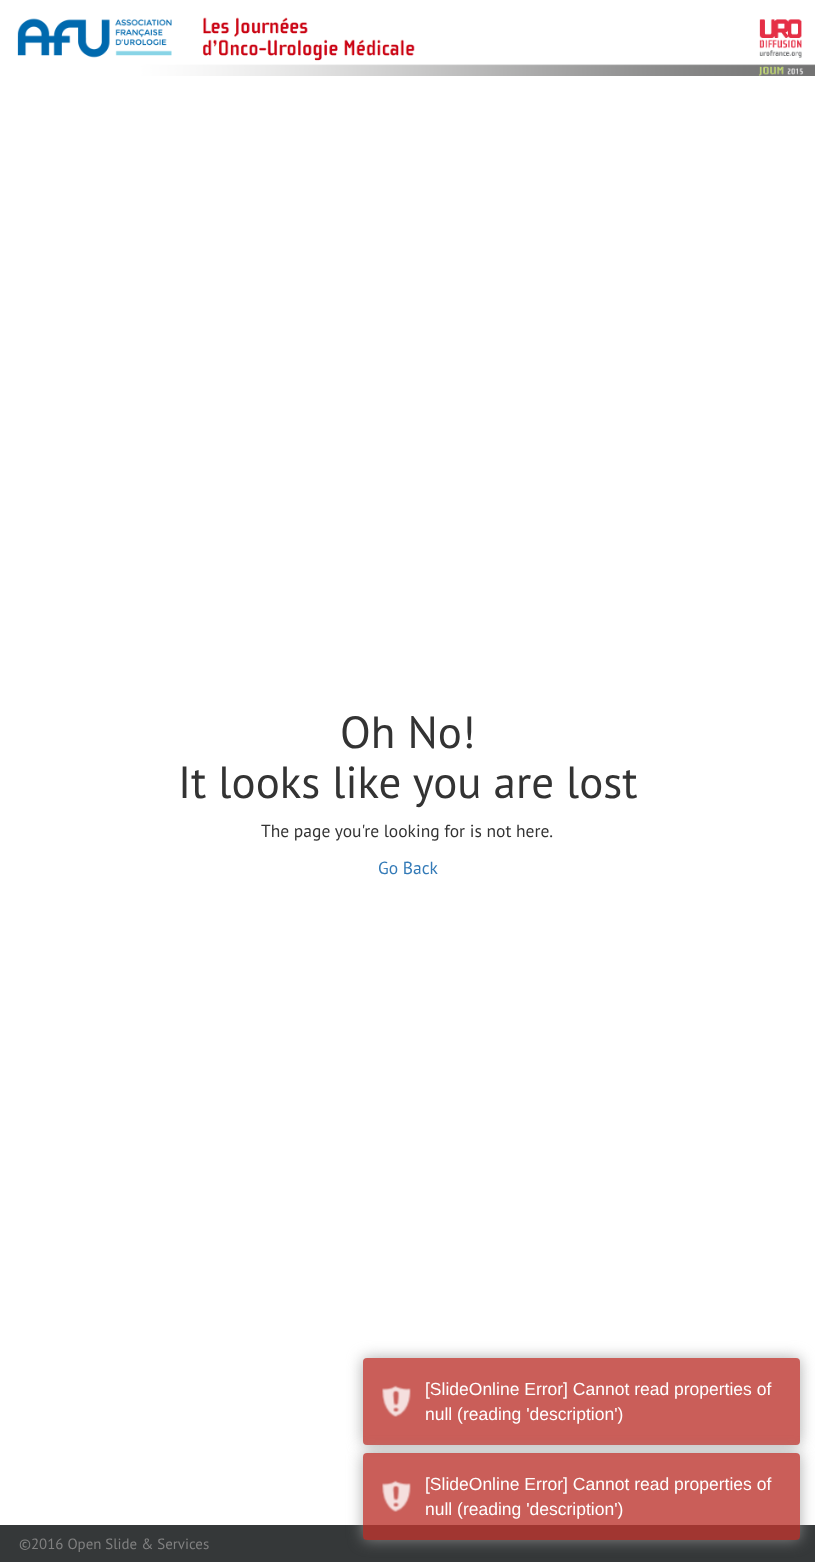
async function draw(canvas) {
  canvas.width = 815
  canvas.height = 1562
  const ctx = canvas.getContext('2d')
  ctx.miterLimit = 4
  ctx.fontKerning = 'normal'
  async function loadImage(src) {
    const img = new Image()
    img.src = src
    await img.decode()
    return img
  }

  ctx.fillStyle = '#fff'
  ctx.fillRect(0, 0, 815, 1562)
  ctx.drawImage(await loadImage('image0.png'), 17, 17, 798, 59)
  ctx.font = '45px PT Sans'
  ctx.fillStyle = '#333'
  ctx.fillText('Oh No!', 340, 748)
  ctx.fillText('It looks like you are lost', 178, 798)
  ctx.font = '17.5px PT Sans'
  ctx.fillText('The page you\'re looking for is not here.', 261, 837)
  ctx.fillStyle = '#337ab7'
  ctx.fillText('Go Back', 378, 874)
  ctx.fillStyle = '#353839'
  ctx.fillRect(0, 1525, 815, 37)
  ctx.font = '14.9px PT Sans'
  ctx.fillStyle = '#808080'
  ctx.fillText('©2016 Open Slide & Services', 19, 1549)
  ctx.fillStyle = '#adadad'
  ctx.filter = 'blur(7.5px)'
  ctx.beginPath()
  ctx.roundRect(363, 1358, 437, 87, 4)
  ctx.fill()
  ctx.filter = 'none'
  ctx.fillStyle = '#ca5e59'
  ctx.beginPath()
  ctx.roundRect(363, 1358, 437, 87, 4)
  ctx.fill()
  ctx.drawImage(await loadImage('image1.png'), 382, 1385, 29, 32)
  ctx.font = '17.5px Liberation Sans'
  ctx.fillStyle = '#fff'
  ctx.fillText('[SlideOnline Error] Cannot read properties of', 425, 1395)
  ctx.fillText('null (reading \'description\')', 425, 1420)
  ctx.save()
  ctx.beginPath()
  ctx.moveTo(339, 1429)
  ctx.lineTo(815, 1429)
  ctx.lineTo(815, 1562)
  ctx.lineTo(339, 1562)
  ctx.closePath()
  ctx.moveTo(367, 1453)
  ctx.lineTo(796, 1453)
  ctx.bezierCurveTo(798, 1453, 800, 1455, 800, 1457)
  ctx.lineTo(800, 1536)
  ctx.bezierCurveTo(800, 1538, 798, 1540, 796, 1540)
  ctx.lineTo(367, 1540)
  ctx.bezierCurveTo(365, 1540, 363, 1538, 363, 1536)
  ctx.lineTo(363, 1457)
  ctx.bezierCurveTo(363, 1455, 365, 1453, 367, 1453)
  ctx.closePath()
  ctx.clip('evenodd')
  ctx.fillStyle = '#999999cc'
  ctx.filter = 'blur(7.5px)'
  ctx.beginPath()
  ctx.roundRect(363, 1453, 437, 87, 4)
  ctx.fill()
  ctx.filter = 'none'
  ctx.restore()
  ctx.fillStyle = '#bd362fcc'
  ctx.beginPath()
  ctx.roundRect(363, 1453, 437, 87, 4)
  ctx.fill()
  ctx.drawImage(await loadImage('image2.png'), 382, 1480, 29, 32)
  ctx.fillStyle = '#fff'
  ctx.fillText('[SlideOnline Error] Cannot read properties of', 425, 1490)
  ctx.fillText('null (reading \'description\')', 425, 1515)
}

draw(document.querySelector('canvas'))
